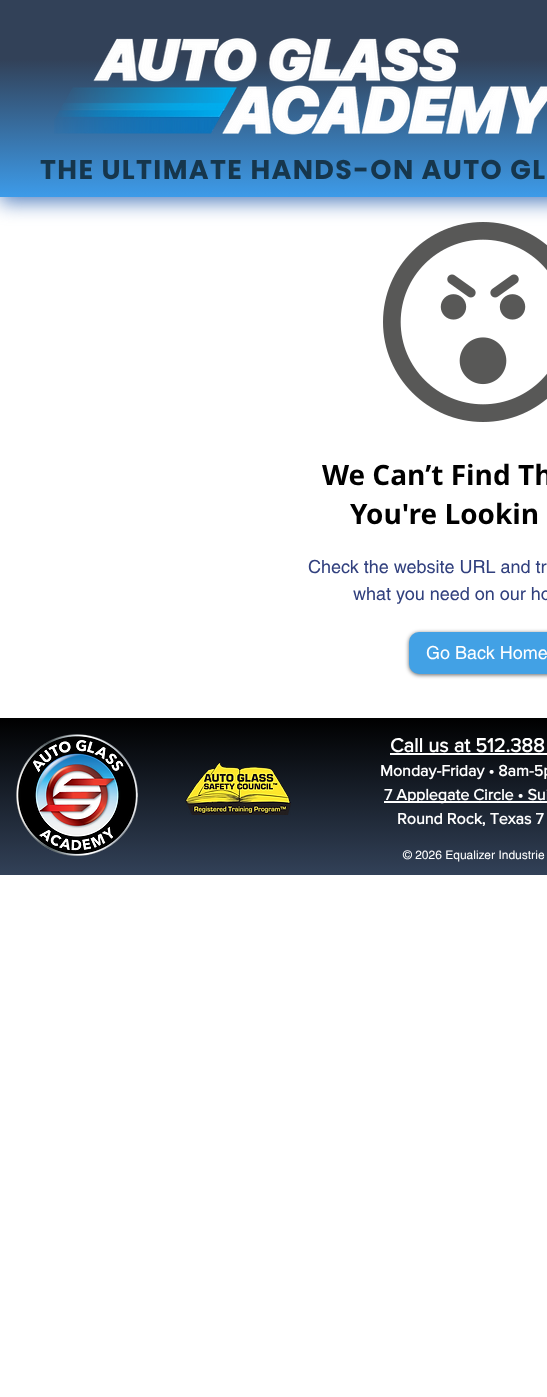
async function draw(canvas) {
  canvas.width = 547
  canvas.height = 1397
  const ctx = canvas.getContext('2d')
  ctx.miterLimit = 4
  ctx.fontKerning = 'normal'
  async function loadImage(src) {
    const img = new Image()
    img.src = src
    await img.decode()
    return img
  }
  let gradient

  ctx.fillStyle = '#fff'
  ctx.fillRect(0, 0, 547, 1397)
  ctx.drawImage(await loadImage('image1.png'), 383, 222, 164, 200)
  ctx.fillStyle = '#5480bf'
  ctx.filter = 'blur(10px)'
  ctx.beginPath()
  ctx.rect(0, 5, 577, 197)
  ctx.fill()
  ctx.filter = 'none'
  gradient = ctx.createLinearGradient(490, 0, 490, 197)
  gradient.addColorStop(0.3, '#324158')
  gradient.addColorStop(1, '#3d9be9')
  ctx.fillStyle = gradient
  ctx.fillRect(0, 0, 547, 197)
  ctx.drawImage(await loadImage('image0.png'), 54, 38, 493, 97)
  ctx.letterSpacing = '1.35px'
  ctx.font = 'bold 27px Poppins'
  ctx.fillStyle = '#16364c'
  ctx.fillText('THE ULTIMATE HANDS-ON AUTO GL', 40, 179)
  ctx.letterSpacing = '0px'
  ctx.font = 'bold 28px Open Sans'
  ctx.fillStyle = '#000'
  ctx.fillText('We Can’t Find Th', 322, 485)
  ctx.fillText('You\'re Lookin', 350, 524)
  ctx.font = '18px helvetica'
  ctx.fillStyle = '#31407e'
  ctx.fillText('Check the website URL and tr', 308, 573)
  ctx.fillText('what you need on our ho', 353, 600)
  ctx.fillStyle = '#00000099'
  ctx.filter = 'blur(2px)'
  ctx.beginPath()
  ctx.roundRect(409, 633, 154, 42, 10)
  ctx.fill()
  ctx.filter = 'none'
  ctx.fillStyle = '#42a1e5'
  ctx.beginPath()
  ctx.roundRect(409, 632, 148, 42, 10)
  ctx.fill()
  ctx.fillStyle = '#fff'
  ctx.fillText('Go Back Home', 426, 659)
  gradient = ctx.createLinearGradient(490, 718, 490, 875)
  gradient.addColorStop(0, '#000')
  gradient.addColorStop(1, '#324158')
  ctx.fillStyle = gradient
  ctx.fillRect(0, 718, 547, 157)
  ctx.drawImage(await loadImage('image2.png'), 16, 734, 122, 122)
  ctx.drawImage(await loadImage('image3.png'), 185, 762, 106, 53)
  ctx.font = 'bold 20px "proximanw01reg"'
  ctx.fillStyle = '#fff'
  ctx.fillText('Call us at 512.388', 390, 752)
  ctx.fillRect(390, 753, 157, 2)
  ctx.font = 'bold 16px "proximanw01reg"'
  ctx.fillText('Monday-Friday • 8am-5p', 380, 776)
  ctx.fillRect(384, 801, 163, 2)
  ctx.fillText('7 Applegate Circle • Sui', 384, 800)
  ctx.fillText('Round Rock, Texas 7', 397, 824)
  ctx.font = '12px helvetica'
  ctx.fillText('© 2026 Equalizer Industrie', 403, 859)
}

draw(document.querySelector('canvas'))
